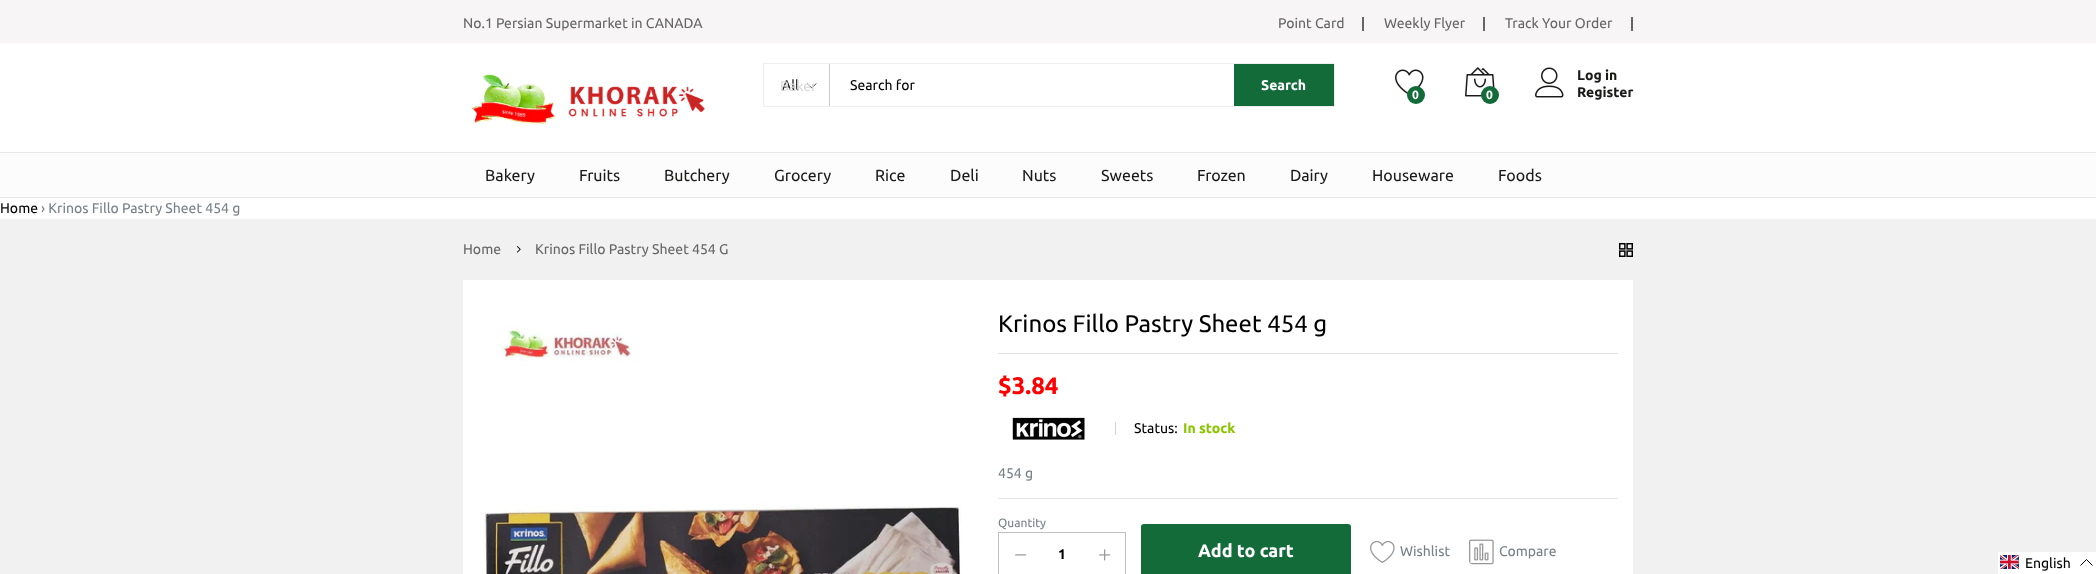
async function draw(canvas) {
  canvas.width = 2096
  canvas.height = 574
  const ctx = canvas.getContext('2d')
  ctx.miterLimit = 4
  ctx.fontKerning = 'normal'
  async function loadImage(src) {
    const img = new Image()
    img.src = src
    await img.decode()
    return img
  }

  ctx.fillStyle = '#fff'
  ctx.fillRect(0, 0, 2096, 574)
  ctx.fillStyle = '#f7f5f5'
  ctx.fillRect(0, 0, 2096, 43)
  ctx.font = '14px Ubuntu'
  ctx.fillStyle = '#666'
  ctx.fillText('No.1 Persian Supermarket in CANADA', 463, 28)
  ctx.fillText('Point Card', 1278, 28)
  ctx.fillRect(1362, 17, 2, 14)
  ctx.fillText('Weekly Flyer', 1384, 28)
  ctx.fillRect(1483, 17, 2, 14)
  ctx.fillText('Track Your Order', 1505, 28)
  ctx.fillRect(1631, 17, 2, 14)
  ctx.drawImage(await loadImage('image0.png'), 471, 74, 234, 50)
  ctx.strokeStyle = '#eee'
  ctx.strokeRect(763.5, 63.5, 571, 43)
  ctx.fillStyle = '#ccc'
  ctx.fillRect(829, 64, 1, 42)
  ctx.fillStyle = '#1a1a19'
  ctx.fillText('All', 782, 90)
  ctx.drawImage(await loadImage('image1.png'), 807, 83, 10, 6)
  ctx.save()
  ctx.beginPath()
  ctx.rect(780, 65, 34, 42)
  ctx.clip()
  ctx.fillStyle = '#d9d9d9'
  ctx.fillText('Baker', 780, 91)
  ctx.restore()
  ctx.fillStyle = '#000'
  ctx.fillText('Search for', 850, 90)
  ctx.fillStyle = '#146b3a'
  ctx.fillRect(1234, 64, 100, 42)
  ctx.font = 'bold 14px Ubuntu'
  ctx.fillStyle = '#fff'
  ctx.fillText('Search', 1261, 90)
  ctx.drawImage(await loadImage('image2.png'), 1395, 69, 29, 26)
  ctx.fillStyle = '#146b3a'
  ctx.beginPath()
  ctx.arc(1416, 95, 9, 0, 2 * Math.PI)
  ctx.fill()
  ctx.font = 'bold 12px Ubuntu'
  ctx.fillStyle = '#fff'
  ctx.fillText('0', 1412, 99)
  ctx.drawImage(await loadImage('image3.png'), 1465, 67, 30, 30)
  ctx.fillStyle = '#146b3a'
  ctx.beginPath()
  ctx.arc(1490, 95, 9, 0, 2 * Math.PI)
  ctx.fill()
  ctx.fillStyle = '#fff'
  ctx.fillText('0', 1486, 99)
  ctx.drawImage(await loadImage('image4.png'), 1535, 67, 29, 31)
  ctx.font = 'bold 14px Ubuntu'
  ctx.fillStyle = '#1a1a19'
  ctx.fillText('Log in', 1577, 80)
  ctx.fillText('Register', 1577, 97)
  ctx.fillStyle = '#fcfcfc'
  ctx.fillRect(0, 153, 2096, 44)
  ctx.fillStyle = '#e7e7e7'
  ctx.fillRect(0, 152, 2096, 1)
  ctx.fillRect(0, 197, 2096, 1)
  ctx.font = '16px Ubuntu'
  ctx.fillStyle = '#1a1a19'
  ctx.fillText('Bakery', 485, 181)
  ctx.fillText('Fruits', 579, 181)
  ctx.fillText('Butchery', 664, 181)
  ctx.fillText('Grocery', 774, 181)
  ctx.fillText('Rice', 875, 181)
  ctx.fillText('Deli', 950, 181)
  ctx.fillText('Nuts', 1022, 181)
  ctx.fillText('Sweets', 1101, 181)
  ctx.fillText('Frozen', 1197, 181)
  ctx.fillText('Dairy', 1290, 181)
  ctx.fillText('Houseware', 1372, 181)
  ctx.fillText('Foods', 1498, 181)
  ctx.font = '14px Ubuntu'
  ctx.fillStyle = '#000'
  ctx.fillText('Home', 0, 213)
  ctx.fillStyle = '#788188'
  ctx.fillText('› Krinos Fillo Pastry Sheet 454 g', 41, 213)
  ctx.fillStyle = '#f1f1f1'
  ctx.fillRect(0, 219, 2096, 355)
  ctx.fillStyle = '#666'
  ctx.fillText('Home', 463, 254)
  ctx.drawImage(await loadImage('image5.png'), 517, 246, 4, 7)
  ctx.fillText('Krinos Fillo Pastry Sheet 454 G', 535, 254)
  ctx.drawImage(await loadImage('image6.png'), 1619, 243, 14, 14)
  ctx.fillStyle = '#fff'
  ctx.fillRect(463, 280, 1170, 294)
  ctx.drawImage(await loadImage('image7.png'), 484, 325, 479, 249)
  ctx.fillStyle = '#e1e1e1'
  ctx.fillRect(998, 353, 620, 1)
  ctx.font = '24px Ubuntu'
  ctx.fillStyle = '#000'
  ctx.fillText('Krinos Fillo Pastry Sheet 454 g', 998, 332)
  ctx.font = 'bold 24px Ubuntu'
  ctx.fillStyle = '#f00'
  ctx.fillText('$3.84', 998, 394)
  ctx.drawImage(await loadImage('image8.png'), 1012, 417, 73, 23)
  ctx.fillStyle = '#d3d3d3'
  ctx.fillRect(1115, 422, 1, 13)
  ctx.font = '14px Ubuntu'
  ctx.fillStyle = '#000'
  ctx.fillText('Status:', 1134, 433)
  ctx.font = 'bold 14px Ubuntu'
  ctx.fillStyle = '#8bc500'
  ctx.fillText('In stock', 1183, 433)
  ctx.fillStyle = '#e7e7e7'
  ctx.fillRect(998, 498, 620, 1)
  ctx.font = '14px Ubuntu'
  ctx.fillStyle = '#788188'
  ctx.fillText('454 g', 998, 478)
  ctx.font = '12px Ubuntu'
  ctx.fillText('Quantity', 998, 527)
  ctx.strokeStyle = '#bfbfbf'
  ctx.strokeRect(998.5, 532.5, 127, 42)
  ctx.drawImage(await loadImage('image9.png'), 1015, 554, 12, 2)
  ctx.font = 'bold 14px Ubuntu'
  ctx.fillStyle = '#000'
  ctx.fillText('1', 1058, 559)
  ctx.drawImage(await loadImage('image10.png'), 1099, 549, 12, 12)
  ctx.fillStyle = '#146b3a'
  ctx.beginPath()
  ctx.roundRect(1141, 524, 210, 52, 3)
  ctx.fill()
  ctx.font = 'bold 18px Ubuntu'
  ctx.fillStyle = '#fff'
  ctx.fillText('Add to cart', 1198, 557)
  ctx.drawImage(await loadImage('image11.png'), 1370, 540, 25, 23)
  ctx.font = '14px Ubuntu'
  ctx.fillStyle = '#788188'
  ctx.fillText('Wishlist', 1400, 556)
  ctx.drawImage(await loadImage('image12.png'), 1469, 539, 25, 26)
  ctx.fillText('Compare', 1499, 556)
  ctx.fillStyle = '#fff'
  ctx.fillRect(1998, 552, 98, 22)
  ctx.drawImage(await loadImage('image13.png'), 2000, 555, 19, 14)
  ctx.fillStyle = '#000'
  ctx.fillText('English', 2025, 568)
  ctx.beginPath()
  ctx.moveTo(2092.5, 565.5)
  ctx.lineTo(2086.5, 559.5)
  ctx.lineTo(2080.5, 565.5)
  ctx.strokeStyle = '#000'
  ctx.stroke()
}

draw(document.querySelector('canvas'))
